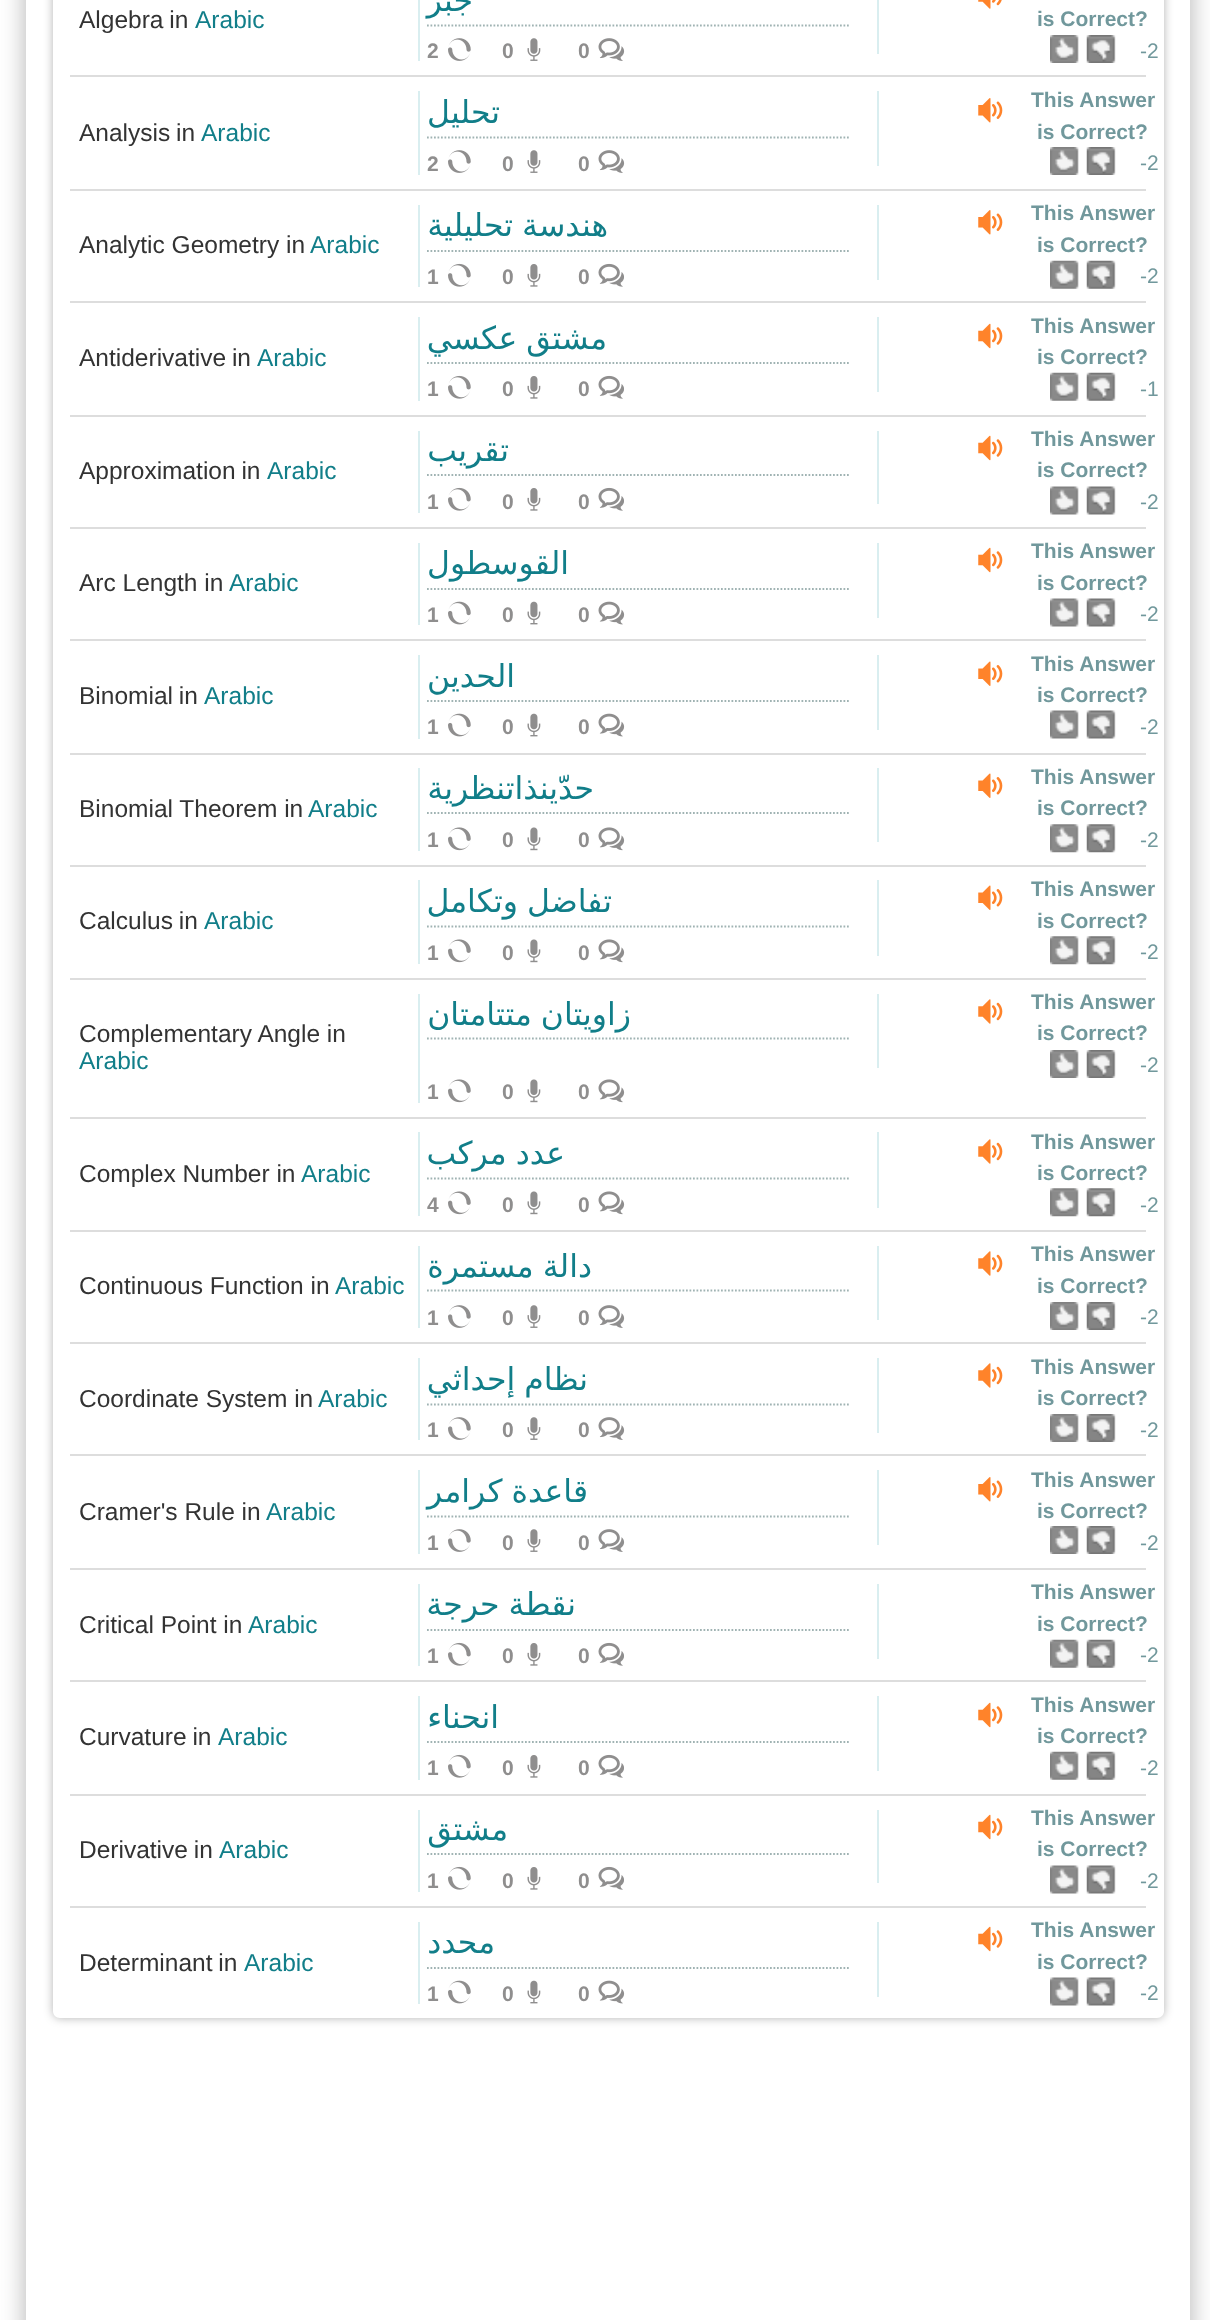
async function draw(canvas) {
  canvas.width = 1215
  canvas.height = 2320
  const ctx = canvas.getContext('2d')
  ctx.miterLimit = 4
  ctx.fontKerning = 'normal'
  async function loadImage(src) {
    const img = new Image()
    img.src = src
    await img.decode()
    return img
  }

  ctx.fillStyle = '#fff'
  ctx.fillRect(0, 0, 1215, 2320)
  ctx.save()
  ctx.beginPath()
  ctx.moveTo(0, 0)
  ctx.lineTo(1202, 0)
  ctx.lineTo(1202, 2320)
  ctx.lineTo(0, 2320)
  ctx.closePath()
  ctx.moveTo(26, -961)
  ctx.lineTo(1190, -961)
  ctx.lineTo(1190, 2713)
  ctx.lineTo(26, 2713)
  ctx.closePath()
  ctx.clip('evenodd')
  ctx.fillStyle = '#0000004d'
  ctx.filter = 'blur(13px)'
  ctx.beginPath()
  ctx.rect(26, -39, 1136, 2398)
  ctx.fill()
  ctx.filter = 'none'
  ctx.restore()
  ctx.save()
  ctx.beginPath()
  ctx.rect(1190, 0, 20, 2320)
  ctx.clip()
  ctx.fillStyle = '#0000004d'
  ctx.filter = 'blur(13px)'
  ctx.beginPath()
  ctx.rect(54, -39, 1136, 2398)
  ctx.fill()
  ctx.filter = 'none'
  ctx.restore()
  ctx.save()
  ctx.beginPath()
  ctx.moveTo(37, 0)
  ctx.lineTo(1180, 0)
  ctx.lineTo(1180, 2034)
  ctx.lineTo(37, 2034)
  ctx.closePath()
  ctx.moveTo(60, -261)
  ctx.lineTo(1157, -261)
  ctx.bezierCurveTo(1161, -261, 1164, -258, 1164, -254)
  ctx.lineTo(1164, 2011)
  ctx.bezierCurveTo(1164, 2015, 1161, 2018, 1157, 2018)
  ctx.lineTo(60, 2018)
  ctx.bezierCurveTo(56, 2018, 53, 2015, 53, 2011)
  ctx.lineTo(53, -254)
  ctx.bezierCurveTo(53, -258, 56, -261, 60, -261)
  ctx.closePath()
  ctx.clip('evenodd')
  ctx.fillStyle = '#0000004d'
  ctx.filter = 'blur(5px)'
  ctx.beginPath()
  ctx.roundRect(53, -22, 1111, 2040, 7)
  ctx.fill()
  ctx.filter = 'none'
  ctx.restore()
  ctx.fillStyle = '#ddd'
  ctx.fillRect(70, 75, 1076, 2)
  ctx.fillStyle = '#d9eef0'
  ctx.fillRect(418, 0, 2, 61)
  ctx.wordSpacing = '-1px'
  ctx.font = '24.5px Liberation Sans'
  ctx.fillStyle = '#333'
  ctx.fillText('Algebra in', 79, 28)
  ctx.wordSpacing = '0px'
  ctx.fillStyle = '#117e89'
  ctx.fillText('Arabic', 195, 28)
  ctx.fillStyle = '#d9eef0'
  ctx.fillRect(877, 0, 2, 54)
  ctx.beginPath()
  ctx.moveTo(427, 25.5)
  ctx.lineTo(850.5, 25.5)
  ctx.strokeStyle = '#a0b3b3'
  ctx.lineWidth = 1.8
  ctx.setLineDash([1.75, 1.75])
  ctx.stroke()
  ctx.direction = 'rtl'
  ctx.font = '31.5px DejaVu Sans'
  ctx.fillStyle = '#117e89'
  ctx.fillText('جبر', 473, 11)
  ctx.direction = 'ltr'
  ctx.font = 'bold 21px Liberation Sans'
  ctx.fillStyle = '#8f8e8e'
  ctx.fillText('2', 427, 58)
  ctx.drawImage(await loadImage('image0.png'), 448, 38, 23, 23)
  ctx.fillText('0', 502, 58)
  ctx.drawImage(await loadImage('image1.png'), 527, 38, 14, 23)
  ctx.fillText('0', 578, 58)
  ctx.drawImage(await loadImage('image2.png'), 598, 38, 27, 23)
  ctx.drawImage(await loadImage('image3.png'), 978, 0, 24, 9)
  ctx.fillStyle = '#71989c'
  ctx.fillText('is Correct?', 1037, 26)
  ctx.drawImage(await loadImage('image4.png'), 1050, 35, 29, 28)
  ctx.drawImage(await loadImage('image5.png'), 1086, 35, 30, 28)
  ctx.font = '21px Liberation Sans'
  ctx.fillText('-2', 1140, 58)
  ctx.fillStyle = '#ddd'
  ctx.fillRect(70, 189, 1076, 2)
  ctx.fillStyle = '#d9eef0'
  ctx.fillRect(418, 91, 2, 84)
  ctx.wordSpacing = '-1px'
  ctx.font = '24.5px Liberation Sans'
  ctx.fillStyle = '#333'
  ctx.fillText('Analysis in', 79, 141)
  ctx.wordSpacing = '0px'
  ctx.fillStyle = '#117e89'
  ctx.fillText('Arabic', 201, 141)
  ctx.fillStyle = '#d9eef0'
  ctx.fillRect(877, 91, 2, 75)
  ctx.beginPath()
  ctx.moveTo(427, 137.5)
  ctx.lineTo(850.5, 137.5)
  ctx.stroke()
  ctx.direction = 'rtl'
  ctx.font = '31.5px DejaVu Sans'
  ctx.fillStyle = '#117e89'
  ctx.fillText('تحليل', 500, 123)
  ctx.direction = 'ltr'
  ctx.font = 'bold 21px Liberation Sans'
  ctx.fillStyle = '#8f8e8e'
  ctx.fillText('2', 427, 171)
  ctx.drawImage(await loadImage('image0.png'), 448, 150, 23, 23)
  ctx.fillText('0', 502, 171)
  ctx.drawImage(await loadImage('image1.png'), 527, 150, 14, 23)
  ctx.fillText('0', 578, 171)
  ctx.drawImage(await loadImage('image2.png'), 598, 150, 27, 23)
  ctx.drawImage(await loadImage('image6.png'), 978, 98, 25, 25)
  ctx.fillStyle = '#71989c'
  ctx.fillText('This Answer', 1031, 107)
  ctx.fillText('is Correct?', 1037, 139)
  ctx.drawImage(await loadImage('image4.png'), 1050, 147, 29, 28)
  ctx.drawImage(await loadImage('image5.png'), 1086, 147, 30, 28)
  ctx.font = '21px Liberation Sans'
  ctx.fillText('-2', 1140, 170)
  ctx.fillStyle = '#ddd'
  ctx.fillRect(70, 301, 1076, 2)
  ctx.fillStyle = '#d9eef0'
  ctx.fillRect(418, 205, 2, 82)
  ctx.font = '24.5px Liberation Sans'
  ctx.fillStyle = '#333'
  ctx.fillText('Analytic Geometry in', 79, 253)
  ctx.fillStyle = '#117e89'
  ctx.fillText('Arabic', 310, 253)
  ctx.fillStyle = '#d9eef0'
  ctx.fillRect(877, 205, 2, 75)
  ctx.beginPath()
  ctx.moveTo(427, 251)
  ctx.lineTo(850.5, 251)
  ctx.stroke()
  ctx.wordSpacing = '-1px'
  ctx.direction = 'rtl'
  ctx.font = '31.5px DejaVu Sans'
  ctx.fillStyle = '#117e89'
  ctx.fillText('هندسة تحليلية', 608, 236)
  ctx.wordSpacing = '0px'
  ctx.direction = 'ltr'
  ctx.font = 'bold 21px Liberation Sans'
  ctx.fillStyle = '#8f8e8e'
  ctx.fillText('1', 427, 284)
  ctx.drawImage(await loadImage('image7.png'), 448, 263, 23, 24)
  ctx.fillText('0', 502, 284)
  ctx.drawImage(await loadImage('image8.png'), 527, 264, 14, 23)
  ctx.fillText('0', 578, 284)
  ctx.drawImage(await loadImage('image9.png'), 598, 263, 26, 24)
  ctx.drawImage(await loadImage('image6.png'), 978, 210, 25, 25)
  ctx.fillStyle = '#71989c'
  ctx.fillText('This Answer', 1031, 220)
  ctx.fillText('is Correct?', 1037, 252)
  ctx.drawImage(await loadImage('image10.png'), 1050, 260, 29, 29)
  ctx.drawImage(await loadImage('image11.png'), 1086, 260, 30, 29)
  ctx.font = '21px Liberation Sans'
  ctx.fillText('-2', 1140, 283)
  ctx.fillStyle = '#ddd'
  ctx.fillRect(70, 415, 1076, 2)
  ctx.fillStyle = '#d9eef0'
  ctx.fillRect(418, 317, 2, 84)
  ctx.wordSpacing = '-1px'
  ctx.font = '24.5px Liberation Sans'
  ctx.fillStyle = '#333'
  ctx.fillText('Antiderivative in', 79, 366)
  ctx.wordSpacing = '0px'
  ctx.fillStyle = '#117e89'
  ctx.fillText('Arabic', 257, 366)
  ctx.fillStyle = '#d9eef0'
  ctx.fillRect(877, 317, 2, 75)
  ctx.beginPath()
  ctx.moveTo(427, 363)
  ctx.lineTo(850.5, 363)
  ctx.stroke()
  ctx.wordSpacing = '-1px'
  ctx.direction = 'rtl'
  ctx.font = '31.5px DejaVu Sans'
  ctx.fillStyle = '#117e89'
  ctx.fillText('مشتق عكسي', 607, 349)
  ctx.wordSpacing = '0px'
  ctx.direction = 'ltr'
  ctx.font = 'bold 21px Liberation Sans'
  ctx.fillStyle = '#8f8e8e'
  ctx.fillText('1', 427, 396)
  ctx.drawImage(await loadImage('image7.png'), 448, 375, 23, 24)
  ctx.fillText('0', 502, 396)
  ctx.drawImage(await loadImage('image8.png'), 527, 376, 14, 23)
  ctx.fillText('0', 578, 396)
  ctx.drawImage(await loadImage('image9.png'), 598, 375, 26, 24)
  ctx.drawImage(await loadImage('image12.png'), 978, 323, 25, 26)
  ctx.fillStyle = '#71989c'
  ctx.fillText('This Answer', 1031, 333)
  ctx.fillText('is Correct?', 1037, 364)
  ctx.drawImage(await loadImage('image10.png'), 1050, 372, 29, 29)
  ctx.drawImage(await loadImage('image11.png'), 1086, 372, 30, 29)
  ctx.font = '21px Liberation Sans'
  ctx.fillText('-1', 1140, 396)
  ctx.fillStyle = '#ddd'
  ctx.fillRect(70, 527, 1076, 2)
  ctx.fillStyle = '#d9eef0'
  ctx.fillRect(418, 431, 2, 82)
  ctx.wordSpacing = '-1px'
  ctx.font = '24.5px Liberation Sans'
  ctx.fillStyle = '#333'
  ctx.fillText('Approximation in', 79, 479)
  ctx.wordSpacing = '0px'
  ctx.fillStyle = '#117e89'
  ctx.fillText('Arabic', 267, 479)
  ctx.fillStyle = '#d9eef0'
  ctx.fillRect(877, 431, 2, 73)
  ctx.beginPath()
  ctx.moveTo(427, 475)
  ctx.lineTo(850.5, 475)
  ctx.stroke()
  ctx.direction = 'rtl'
  ctx.font = '31.5px DejaVu Sans'
  ctx.fillStyle = '#117e89'
  ctx.fillText('تقريب', 509, 461)
  ctx.direction = 'ltr'
  ctx.font = 'bold 21px Liberation Sans'
  ctx.fillStyle = '#8f8e8e'
  ctx.fillText('1', 427, 509)
  ctx.drawImage(await loadImage('image7.png'), 448, 487, 23, 24)
  ctx.fillText('0', 502, 509)
  ctx.drawImage(await loadImage('image8.png'), 527, 488, 14, 23)
  ctx.fillText('0', 578, 509)
  ctx.drawImage(await loadImage('image9.png'), 598, 487, 26, 24)
  ctx.drawImage(await loadImage('image12.png'), 978, 435, 25, 26)
  ctx.fillStyle = '#71989c'
  ctx.fillText('This Answer', 1031, 446)
  ctx.fillText('is Correct?', 1037, 477)
  ctx.drawImage(await loadImage('image13.png'), 1050, 486, 29, 29)
  ctx.drawImage(await loadImage('image14.png'), 1086, 486, 30, 29)
  ctx.font = '21px Liberation Sans'
  ctx.fillText('-2', 1140, 509)
  ctx.fillStyle = '#ddd'
  ctx.fillRect(70, 639, 1076, 2)
  ctx.fillStyle = '#d9eef0'
  ctx.fillRect(418, 543, 2, 82)
  ctx.font = '24.5px Liberation Sans'
  ctx.fillStyle = '#333'
  ctx.fillText('Arc Length in', 79, 591)
  ctx.fillStyle = '#117e89'
  ctx.fillText('Arabic', 229, 591)
  ctx.fillStyle = '#d9eef0'
  ctx.fillRect(877, 543, 2, 75)
  ctx.beginPath()
  ctx.moveTo(427, 589)
  ctx.lineTo(850.5, 589)
  ctx.stroke()
  ctx.direction = 'rtl'
  ctx.font = '31.5px DejaVu Sans'
  ctx.fillStyle = '#117e89'
  ctx.fillText('القوسطول', 569, 574)
  ctx.direction = 'ltr'
  ctx.font = 'bold 21px Liberation Sans'
  ctx.fillStyle = '#8f8e8e'
  ctx.fillText('1', 427, 622)
  ctx.drawImage(await loadImage('image15.png'), 448, 601, 23, 24)
  ctx.fillText('0', 502, 622)
  ctx.drawImage(await loadImage('image16.png'), 527, 601, 14, 24)
  ctx.fillText('0', 578, 622)
  ctx.drawImage(await loadImage('image17.png'), 598, 601, 27, 24)
  ctx.drawImage(await loadImage('image12.png'), 978, 547, 25, 26)
  ctx.fillStyle = '#71989c'
  ctx.fillText('This Answer', 1031, 558)
  ctx.fillText('is Correct?', 1037, 590)
  ctx.drawImage(await loadImage('image13.png'), 1050, 598, 29, 29)
  ctx.drawImage(await loadImage('image14.png'), 1086, 598, 30, 29)
  ctx.font = '21px Liberation Sans'
  ctx.fillText('-2', 1140, 621)
  ctx.fillStyle = '#ddd'
  ctx.fillRect(70, 753, 1076, 2)
  ctx.fillStyle = '#d9eef0'
  ctx.fillRect(418, 655, 2, 84)
  ctx.wordSpacing = '-1px'
  ctx.font = '24.5px Liberation Sans'
  ctx.fillStyle = '#333'
  ctx.fillText('Binomial in', 79, 704)
  ctx.wordSpacing = '0px'
  ctx.fillStyle = '#117e89'
  ctx.fillText('Arabic', 204, 704)
  ctx.fillStyle = '#d9eef0'
  ctx.fillRect(877, 655, 2, 75)
  ctx.beginPath()
  ctx.moveTo(427, 701)
  ctx.lineTo(850.5, 701)
  ctx.stroke()
  ctx.direction = 'rtl'
  ctx.font = '31.5px DejaVu Sans'
  ctx.fillStyle = '#117e89'
  ctx.fillText('الحدين', 515, 687)
  ctx.direction = 'ltr'
  ctx.font = 'bold 21px Liberation Sans'
  ctx.fillStyle = '#8f8e8e'
  ctx.fillText('1', 427, 734)
  ctx.drawImage(await loadImage('image15.png'), 448, 713, 23, 24)
  ctx.fillText('0', 502, 734)
  ctx.drawImage(await loadImage('image16.png'), 527, 713, 14, 24)
  ctx.fillText('0', 578, 734)
  ctx.drawImage(await loadImage('image17.png'), 598, 713, 27, 24)
  ctx.drawImage(await loadImage('image18.png'), 978, 661, 25, 25)
  ctx.fillStyle = '#71989c'
  ctx.fillText('This Answer', 1031, 671)
  ctx.fillText('is Correct?', 1037, 702)
  ctx.drawImage(await loadImage('image13.png'), 1050, 710, 29, 29)
  ctx.drawImage(await loadImage('image14.png'), 1086, 710, 30, 29)
  ctx.font = '21px Liberation Sans'
  ctx.fillText('-2', 1140, 734)
  ctx.fillStyle = '#ddd'
  ctx.fillRect(70, 865, 1076, 2)
  ctx.fillStyle = '#d9eef0'
  ctx.fillRect(418, 768, 2, 83)
  ctx.font = '24.5px Liberation Sans'
  ctx.fillStyle = '#333'
  ctx.fillText('Binomial Theorem in', 79, 817)
  ctx.fillStyle = '#117e89'
  ctx.fillText('Arabic', 308, 817)
  ctx.fillStyle = '#d9eef0'
  ctx.fillRect(877, 768, 2, 74)
  ctx.beginPath()
  ctx.moveTo(427, 813)
  ctx.lineTo(850.5, 813)
  ctx.stroke()
  ctx.direction = 'rtl'
  ctx.font = '31.5px DejaVu Sans'
  ctx.fillStyle = '#117e89'
  ctx.fillText('حدّينذاتنظرية', 594, 799)
  ctx.direction = 'ltr'
  ctx.font = 'bold 21px Liberation Sans'
  ctx.fillStyle = '#8f8e8e'
  ctx.fillText('1', 427, 847)
  ctx.drawImage(await loadImage('image19.png'), 448, 827, 23, 24)
  ctx.fillText('0', 502, 847)
  ctx.drawImage(await loadImage('image20.png'), 527, 827, 14, 24)
  ctx.fillText('0', 578, 847)
  ctx.drawImage(await loadImage('image21.png'), 598, 827, 27, 24)
  ctx.drawImage(await loadImage('image18.png'), 978, 773, 25, 25)
  ctx.fillStyle = '#71989c'
  ctx.fillText('This Answer', 1031, 784)
  ctx.fillText('is Correct?', 1037, 815)
  ctx.drawImage(await loadImage('image22.png'), 1050, 824, 29, 29)
  ctx.drawImage(await loadImage('image23.png'), 1086, 824, 30, 29)
  ctx.font = '21px Liberation Sans'
  ctx.fillText('-2', 1140, 847)
  ctx.fillStyle = '#ddd'
  ctx.fillRect(70, 978, 1076, 2)
  ctx.fillStyle = '#d9eef0'
  ctx.fillRect(418, 880, 2, 84)
  ctx.wordSpacing = '-1px'
  ctx.font = '24.5px Liberation Sans'
  ctx.fillStyle = '#333'
  ctx.fillText('Calculus in', 79, 929)
  ctx.wordSpacing = '0px'
  ctx.fillStyle = '#117e89'
  ctx.fillText('Arabic', 204, 929)
  ctx.fillStyle = '#d9eef0'
  ctx.fillRect(877, 880, 2, 76)
  ctx.beginPath()
  ctx.moveTo(427, 926.5)
  ctx.lineTo(850.5, 926.5)
  ctx.stroke()
  ctx.wordSpacing = '-1px'
  ctx.direction = 'rtl'
  ctx.font = '31.5px DejaVu Sans'
  ctx.fillStyle = '#117e89'
  ctx.fillText('تفاضل وتكامل', 612, 912)
  ctx.wordSpacing = '0px'
  ctx.direction = 'ltr'
  ctx.font = 'bold 21px Liberation Sans'
  ctx.fillStyle = '#8f8e8e'
  ctx.fillText('1', 427, 960)
  ctx.drawImage(await loadImage('image19.png'), 448, 939, 23, 24)
  ctx.fillText('0', 502, 960)
  ctx.drawImage(await loadImage('image20.png'), 527, 939, 14, 24)
  ctx.fillText('0', 578, 960)
  ctx.drawImage(await loadImage('image21.png'), 598, 939, 27, 24)
  ctx.drawImage(await loadImage('image18.png'), 978, 885, 25, 25)
  ctx.fillStyle = '#71989c'
  ctx.fillText('This Answer', 1031, 896)
  ctx.fillText('is Correct?', 1037, 928)
  ctx.drawImage(await loadImage('image22.png'), 1050, 936, 29, 29)
  ctx.drawImage(await loadImage('image23.png'), 1086, 936, 30, 29)
  ctx.font = '21px Liberation Sans'
  ctx.fillText('-2', 1140, 959)
  ctx.fillStyle = '#ddd'
  ctx.fillRect(70, 1117, 1076, 2)
  ctx.fillStyle = '#d9eef0'
  ctx.fillRect(418, 994, 2, 109)
  ctx.font = '24.5px Liberation Sans'
  ctx.fillStyle = '#333'
  ctx.fillText('Complementary Angle in', 79, 1042)
  ctx.fillStyle = '#117e89'
  ctx.fillText('Arabic', 79, 1069)
  ctx.fillStyle = '#d9eef0'
  ctx.fillRect(877, 994, 2, 74)
  ctx.beginPath()
  ctx.moveTo(427, 1038.5)
  ctx.lineTo(850.5, 1038.5)
  ctx.stroke()
  ctx.wordSpacing = '-1px'
  ctx.direction = 'rtl'
  ctx.font = '31.5px DejaVu Sans'
  ctx.fillStyle = '#117e89'
  ctx.fillText('زاويتان متتامتان', 631, 1025)
  ctx.wordSpacing = '0px'
  ctx.direction = 'ltr'
  ctx.font = 'bold 21px Liberation Sans'
  ctx.fillStyle = '#8f8e8e'
  ctx.fillText('1', 427, 1099)
  ctx.drawImage(await loadImage('image19.png'), 448, 1079, 23, 24)
  ctx.fillText('0', 502, 1099)
  ctx.drawImage(await loadImage('image20.png'), 527, 1079, 14, 24)
  ctx.fillText('0', 578, 1099)
  ctx.drawImage(await loadImage('image21.png'), 598, 1079, 27, 24)
  ctx.drawImage(await loadImage('image24.png'), 978, 999, 25, 25)
  ctx.fillStyle = '#71989c'
  ctx.fillText('This Answer', 1031, 1009)
  ctx.fillText('is Correct?', 1037, 1040)
  ctx.drawImage(await loadImage('image4.png'), 1050, 1050, 29, 28)
  ctx.drawImage(await loadImage('image5.png'), 1086, 1050, 30, 28)
  ctx.font = '21px Liberation Sans'
  ctx.fillText('-2', 1140, 1072)
  ctx.fillStyle = '#ddd'
  ctx.fillRect(70, 1230, 1076, 2)
  ctx.fillStyle = '#d9eef0'
  ctx.fillRect(418, 1132, 2, 84)
  ctx.font = '24.5px Liberation Sans'
  ctx.fillStyle = '#333'
  ctx.fillText('Complex Number in', 79, 1182)
  ctx.fillStyle = '#117e89'
  ctx.fillText('Arabic', 301, 1182)
  ctx.fillStyle = '#d9eef0'
  ctx.fillRect(877, 1132, 2, 76)
  ctx.beginPath()
  ctx.moveTo(427, 1178.5)
  ctx.lineTo(850.5, 1178.5)
  ctx.stroke()
  ctx.wordSpacing = '-1px'
  ctx.direction = 'rtl'
  ctx.font = '31.5px DejaVu Sans'
  ctx.fillStyle = '#117e89'
  ctx.fillText('عدد مركب', 565, 1164)
  ctx.wordSpacing = '0px'
  ctx.direction = 'ltr'
  ctx.font = 'bold 21px Liberation Sans'
  ctx.fillStyle = '#8f8e8e'
  ctx.fillText('4', 427, 1212)
  ctx.drawImage(await loadImage('image19.png'), 448, 1191, 23, 24)
  ctx.fillText('0', 502, 1212)
  ctx.drawImage(await loadImage('image20.png'), 527, 1191, 14, 24)
  ctx.fillText('0', 578, 1212)
  ctx.drawImage(await loadImage('image21.png'), 598, 1191, 27, 24)
  ctx.drawImage(await loadImage('image24.png'), 978, 1139, 25, 25)
  ctx.fillStyle = '#71989c'
  ctx.fillText('This Answer', 1031, 1149)
  ctx.fillText('is Correct?', 1037, 1180)
  ctx.drawImage(await loadImage('image22.png'), 1050, 1188, 29, 29)
  ctx.drawImage(await loadImage('image23.png'), 1086, 1188, 30, 29)
  ctx.font = '21px Liberation Sans'
  ctx.fillText('-2', 1140, 1212)
  ctx.fillStyle = '#ddd'
  ctx.fillRect(70, 1342, 1076, 2)
  ctx.fillStyle = '#d9eef0'
  ctx.fillRect(418, 1246, 2, 82)
  ctx.font = '24.5px Liberation Sans'
  ctx.fillStyle = '#333'
  ctx.fillText('Continuous Function in', 79, 1294)
  ctx.fillStyle = '#117e89'
  ctx.fillText('Arabic', 335, 1294)
  ctx.fillStyle = '#d9eef0'
  ctx.fillRect(877, 1246, 2, 74)
  ctx.beginPath()
  ctx.moveTo(427, 1290.5)
  ctx.lineTo(850.5, 1290.5)
  ctx.stroke()
  ctx.wordSpacing = '-1px'
  ctx.direction = 'rtl'
  ctx.font = '31.5px DejaVu Sans'
  ctx.fillStyle = '#117e89'
  ctx.fillText('دالة مستمرة', 592, 1277)
  ctx.wordSpacing = '0px'
  ctx.direction = 'ltr'
  ctx.font = 'bold 21px Liberation Sans'
  ctx.fillStyle = '#8f8e8e'
  ctx.fillText('1', 427, 1325)
  ctx.drawImage(await loadImage('image0.png'), 448, 1305, 23, 23)
  ctx.fillText('0', 502, 1325)
  ctx.drawImage(await loadImage('image1.png'), 527, 1305, 14, 23)
  ctx.fillText('0', 578, 1325)
  ctx.drawImage(await loadImage('image2.png'), 598, 1305, 27, 23)
  ctx.drawImage(await loadImage('image24.png'), 978, 1251, 25, 25)
  ctx.fillStyle = '#71989c'
  ctx.fillText('This Answer', 1031, 1261)
  ctx.fillText('is Correct?', 1037, 1293)
  ctx.drawImage(await loadImage('image4.png'), 1050, 1302, 29, 28)
  ctx.drawImage(await loadImage('image5.png'), 1086, 1302, 30, 28)
  ctx.font = '21px Liberation Sans'
  ctx.fillText('-2', 1140, 1324)
  ctx.fillStyle = '#ddd'
  ctx.fillRect(70, 1454, 1076, 2)
  ctx.fillStyle = '#d9eef0'
  ctx.fillRect(418, 1358, 2, 82)
  ctx.font = '24.5px Liberation Sans'
  ctx.fillStyle = '#333'
  ctx.fillText('Coordinate System in', 79, 1407)
  ctx.fillStyle = '#117e89'
  ctx.fillText('Arabic', 318, 1407)
  ctx.fillStyle = '#d9eef0'
  ctx.fillRect(877, 1358, 2, 75)
  ctx.beginPath()
  ctx.moveTo(427, 1404.5)
  ctx.lineTo(850.5, 1404.5)
  ctx.stroke()
  ctx.wordSpacing = '-1px'
  ctx.direction = 'rtl'
  ctx.font = '31.5px DejaVu Sans'
  ctx.fillStyle = '#117e89'
  ctx.fillText('نظام إحداثي', 588, 1390)
  ctx.wordSpacing = '0px'
  ctx.direction = 'ltr'
  ctx.font = 'bold 21px Liberation Sans'
  ctx.fillStyle = '#8f8e8e'
  ctx.fillText('1', 427, 1437)
  ctx.drawImage(await loadImage('image0.png'), 448, 1417, 23, 23)
  ctx.fillText('0', 502, 1437)
  ctx.drawImage(await loadImage('image1.png'), 527, 1417, 14, 23)
  ctx.fillText('0', 578, 1437)
  ctx.drawImage(await loadImage('image2.png'), 598, 1417, 27, 23)
  ctx.drawImage(await loadImage('image24.png'), 978, 1363, 25, 25)
  ctx.fillStyle = '#71989c'
  ctx.fillText('This Answer', 1031, 1374)
  ctx.fillText('is Correct?', 1037, 1405)
  ctx.drawImage(await loadImage('image4.png'), 1050, 1414, 29, 28)
  ctx.drawImage(await loadImage('image5.png'), 1086, 1414, 30, 28)
  ctx.font = '21px Liberation Sans'
  ctx.fillText('-2', 1140, 1437)
  ctx.fillStyle = '#ddd'
  ctx.fillRect(70, 1568, 1076, 2)
  ctx.fillStyle = '#d9eef0'
  ctx.fillRect(418, 1470, 2, 84)
  ctx.font = '24.5px Liberation Sans'
  ctx.fillStyle = '#333'
  ctx.fillText('Cramer\'s Rule in', 79, 1520)
  ctx.fillStyle = '#117e89'
  ctx.fillText('Arabic', 266, 1520)
  ctx.fillStyle = '#d9eef0'
  ctx.fillRect(877, 1470, 2, 75)
  ctx.beginPath()
  ctx.moveTo(427, 1516.5)
  ctx.lineTo(850.5, 1516.5)
  ctx.stroke()
  ctx.wordSpacing = '-1px'
  ctx.direction = 'rtl'
  ctx.font = '31.5px DejaVu Sans'
  ctx.fillStyle = '#117e89'
  ctx.fillText('قاعدة كرامر', 588, 1502)
  ctx.wordSpacing = '0px'
  ctx.direction = 'ltr'
  ctx.font = 'bold 21px Liberation Sans'
  ctx.fillStyle = '#8f8e8e'
  ctx.fillText('1', 427, 1550)
  ctx.drawImage(await loadImage('image0.png'), 448, 1529, 23, 23)
  ctx.fillText('0', 502, 1550)
  ctx.drawImage(await loadImage('image1.png'), 527, 1529, 14, 23)
  ctx.fillText('0', 578, 1550)
  ctx.drawImage(await loadImage('image2.png'), 598, 1529, 27, 23)
  ctx.drawImage(await loadImage('image6.png'), 978, 1477, 25, 25)
  ctx.fillStyle = '#71989c'
  ctx.fillText('This Answer', 1031, 1487)
  ctx.fillText('is Correct?', 1037, 1518)
  ctx.drawImage(await loadImage('image4.png'), 1050, 1526, 29, 28)
  ctx.drawImage(await loadImage('image5.png'), 1086, 1526, 30, 28)
  ctx.font = '21px Liberation Sans'
  ctx.fillText('-2', 1140, 1550)
  ctx.fillStyle = '#ddd'
  ctx.fillRect(70, 1680, 1076, 2)
  ctx.fillStyle = '#d9eef0'
  ctx.fillRect(418, 1584, 2, 82)
  ctx.font = '24.5px Liberation Sans'
  ctx.fillStyle = '#333'
  ctx.fillText('Critical Point in', 79, 1633)
  ctx.fillStyle = '#117e89'
  ctx.fillText('Arabic', 248, 1633)
  ctx.fillStyle = '#d9eef0'
  ctx.fillRect(877, 1584, 2, 75)
  ctx.beginPath()
  ctx.moveTo(427, 1630)
  ctx.lineTo(850.5, 1630)
  ctx.stroke()
  ctx.wordSpacing = '-1px'
  ctx.direction = 'rtl'
  ctx.font = '31.5px DejaVu Sans'
  ctx.fillStyle = '#117e89'
  ctx.fillText('نقطة حرجة', 576, 1615)
  ctx.wordSpacing = '0px'
  ctx.direction = 'ltr'
  ctx.font = 'bold 21px Liberation Sans'
  ctx.fillStyle = '#8f8e8e'
  ctx.fillText('1', 427, 1663)
  ctx.drawImage(await loadImage('image7.png'), 448, 1642, 23, 24)
  ctx.fillText('0', 502, 1663)
  ctx.drawImage(await loadImage('image8.png'), 527, 1643, 14, 23)
  ctx.fillText('0', 578, 1663)
  ctx.drawImage(await loadImage('image9.png'), 598, 1642, 26, 24)
  ctx.fillStyle = '#71989c'
  ctx.fillText('This Answer', 1031, 1599)
  ctx.fillText('is Correct?', 1037, 1631)
  ctx.drawImage(await loadImage('image10.png'), 1050, 1639, 29, 29)
  ctx.drawImage(await loadImage('image11.png'), 1086, 1639, 30, 29)
  ctx.font = '21px Liberation Sans'
  ctx.fillText('-2', 1140, 1662)
  ctx.fillStyle = '#ddd'
  ctx.fillRect(70, 1794, 1076, 2)
  ctx.fillStyle = '#d9eef0'
  ctx.fillRect(418, 1696, 2, 84)
  ctx.wordSpacing = '-1px'
  ctx.font = '24.5px Liberation Sans'
  ctx.fillStyle = '#333'
  ctx.fillText('Curvature in', 79, 1745)
  ctx.wordSpacing = '0px'
  ctx.fillStyle = '#117e89'
  ctx.fillText('Arabic', 218, 1745)
  ctx.fillStyle = '#d9eef0'
  ctx.fillRect(877, 1696, 2, 75)
  ctx.beginPath()
  ctx.moveTo(427, 1742)
  ctx.lineTo(850.5, 1742)
  ctx.stroke()
  ctx.direction = 'rtl'
  ctx.font = '31.5px DejaVu Sans'
  ctx.fillStyle = '#117e89'
  ctx.fillText('انحناء', 499, 1728)
  ctx.direction = 'ltr'
  ctx.font = 'bold 21px Liberation Sans'
  ctx.fillStyle = '#8f8e8e'
  ctx.fillText('1', 427, 1775)
  ctx.drawImage(await loadImage('image7.png'), 448, 1754, 23, 24)
  ctx.fillText('0', 502, 1775)
  ctx.drawImage(await loadImage('image8.png'), 527, 1755, 14, 23)
  ctx.fillText('0', 578, 1775)
  ctx.drawImage(await loadImage('image9.png'), 598, 1754, 26, 24)
  ctx.drawImage(await loadImage('image12.png'), 978, 1702, 25, 26)
  ctx.fillStyle = '#71989c'
  ctx.fillText('This Answer', 1031, 1712)
  ctx.fillText('is Correct?', 1037, 1743)
  ctx.drawImage(await loadImage('image10.png'), 1050, 1751, 29, 29)
  ctx.drawImage(await loadImage('image11.png'), 1086, 1751, 30, 29)
  ctx.font = '21px Liberation Sans'
  ctx.fillText('-2', 1140, 1775)
  ctx.fillStyle = '#ddd'
  ctx.fillRect(70, 1906, 1076, 2)
  ctx.fillStyle = '#d9eef0'
  ctx.fillRect(418, 1810, 2, 82)
  ctx.wordSpacing = '-1px'
  ctx.font = '24.5px Liberation Sans'
  ctx.fillStyle = '#333'
  ctx.fillText('Derivative in', 79, 1858)
  ctx.wordSpacing = '0px'
  ctx.fillStyle = '#117e89'
  ctx.fillText('Arabic', 219, 1858)
  ctx.fillStyle = '#d9eef0'
  ctx.fillRect(877, 1810, 2, 73)
  ctx.beginPath()
  ctx.moveTo(427, 1854)
  ctx.lineTo(850.5, 1854)
  ctx.stroke()
  ctx.direction = 'rtl'
  ctx.font = '31.5px DejaVu Sans'
  ctx.fillStyle = '#117e89'
  ctx.fillText('مشتق', 508, 1840)
  ctx.direction = 'ltr'
  ctx.font = 'bold 21px Liberation Sans'
  ctx.fillStyle = '#8f8e8e'
  ctx.fillText('1', 427, 1888)
  ctx.drawImage(await loadImage('image7.png'), 448, 1866, 23, 24)
  ctx.fillText('0', 502, 1888)
  ctx.drawImage(await loadImage('image8.png'), 527, 1867, 14, 23)
  ctx.fillText('0', 578, 1888)
  ctx.drawImage(await loadImage('image9.png'), 598, 1866, 26, 24)
  ctx.drawImage(await loadImage('image12.png'), 978, 1814, 25, 26)
  ctx.fillStyle = '#71989c'
  ctx.fillText('This Answer', 1031, 1825)
  ctx.fillText('is Correct?', 1037, 1856)
  ctx.drawImage(await loadImage('image13.png'), 1050, 1865, 29, 29)
  ctx.drawImage(await loadImage('image14.png'), 1086, 1865, 30, 29)
  ctx.font = '21px Liberation Sans'
  ctx.fillText('-2', 1140, 1888)
  ctx.fillStyle = '#d9eef0'
  ctx.fillRect(418, 1922, 2, 82)
  ctx.wordSpacing = '-1px'
  ctx.font = '24.5px Liberation Sans'
  ctx.fillStyle = '#333'
  ctx.fillText('Determinant in', 79, 1971)
  ctx.wordSpacing = '0px'
  ctx.fillStyle = '#117e89'
  ctx.fillText('Arabic', 244, 1971)
  ctx.fillStyle = '#d9eef0'
  ctx.fillRect(877, 1922, 2, 75)
  ctx.beginPath()
  ctx.moveTo(427, 1968)
  ctx.lineTo(850.5, 1968)
  ctx.stroke()
  ctx.direction = 'rtl'
  ctx.font = '31.5px DejaVu Sans'
  ctx.fillStyle = '#117e89'
  ctx.fillText('محدد', 495, 1953)
  ctx.direction = 'ltr'
  ctx.font = 'bold 21px Liberation Sans'
  ctx.fillStyle = '#8f8e8e'
  ctx.fillText('1', 427, 2001)
  ctx.drawImage(await loadImage('image15.png'), 448, 1980, 23, 24)
  ctx.fillText('0', 502, 2001)
  ctx.drawImage(await loadImage('image16.png'), 527, 1980, 14, 24)
  ctx.fillText('0', 578, 2001)
  ctx.drawImage(await loadImage('image17.png'), 598, 1980, 27, 24)
  ctx.drawImage(await loadImage('image12.png'), 978, 1926, 25, 26)
  ctx.fillStyle = '#71989c'
  ctx.fillText('This Answer', 1031, 1937)
  ctx.fillText('is Correct?', 1037, 1969)
  ctx.drawImage(await loadImage('image13.png'), 1050, 1977, 29, 29)
  ctx.drawImage(await loadImage('image14.png'), 1086, 1977, 30, 29)
  ctx.font = '21px Liberation Sans'
  ctx.fillText('-2', 1140, 2000)
}

draw(document.querySelector('canvas'))
